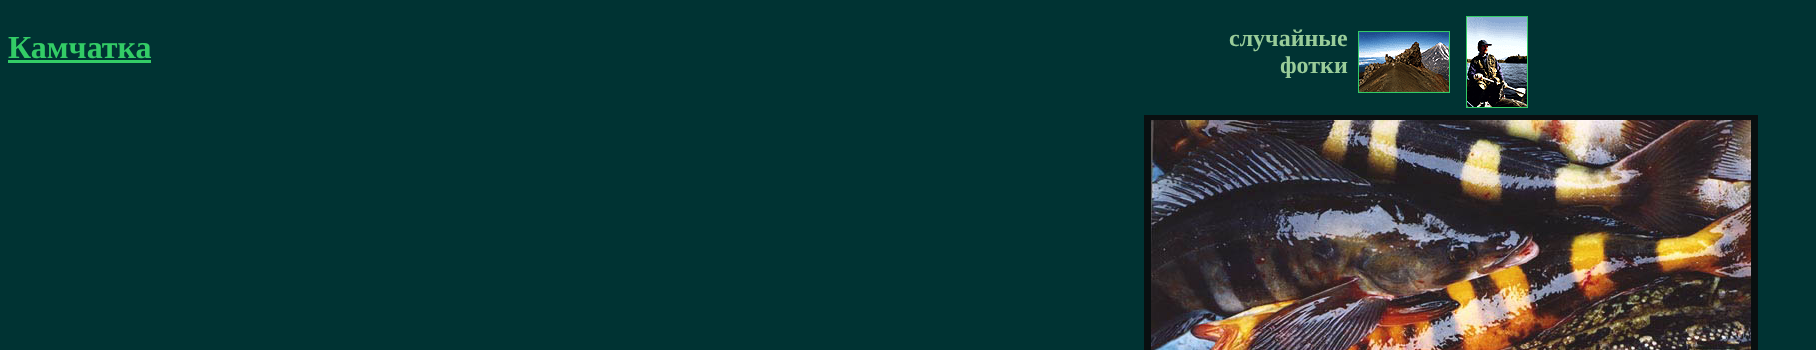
async function draw(canvas) {
  canvas.width = 1816
  canvas.height = 350
  const ctx = canvas.getContext('2d')
  ctx.miterLimit = 4
  ctx.fontKerning = 'normal'
  async function loadImage(src) {
    const img = new Image()
    img.src = src
    await img.decode()
    return img
  }

  ctx.fillStyle = '#033'
  ctx.fillRect(0, 0, 1816, 350)
  ctx.font = 'bold 32px Liberation Serif'
  ctx.fillStyle = '#3c6'
  ctx.fillText('Камчатка', 8, 58)
  ctx.fillRect(8, 60, 143, 3)
  ctx.font = 'bold 24px Liberation Serif'
  ctx.fillStyle = '#9c9'
  ctx.fillText('случайные', 1229, 46)
  ctx.fillText('фотки', 1280, 73)
  ctx.strokeStyle = '#3c6'
  ctx.strokeRect(1358.5, 31.5, 91, 61)
  ctx.drawImage(await loadImage('image0.png'), 1359, 32, 90, 60)
  ctx.strokeRect(1466.5, 16.5, 61, 91)
  ctx.drawImage(await loadImage('image1.png'), 1467, 17, 60, 90)
  ctx.fillStyle = '#090f10'
  ctx.fillRect(1144, 115, 614, 5)
  ctx.fillRect(1144, 120, 7, 230)
  ctx.drawImage(await loadImage('image2.png'), 1151, 120, 600, 230)
  ctx.fillRect(1751, 120, 7, 230)
}

draw(document.querySelector('canvas'))
